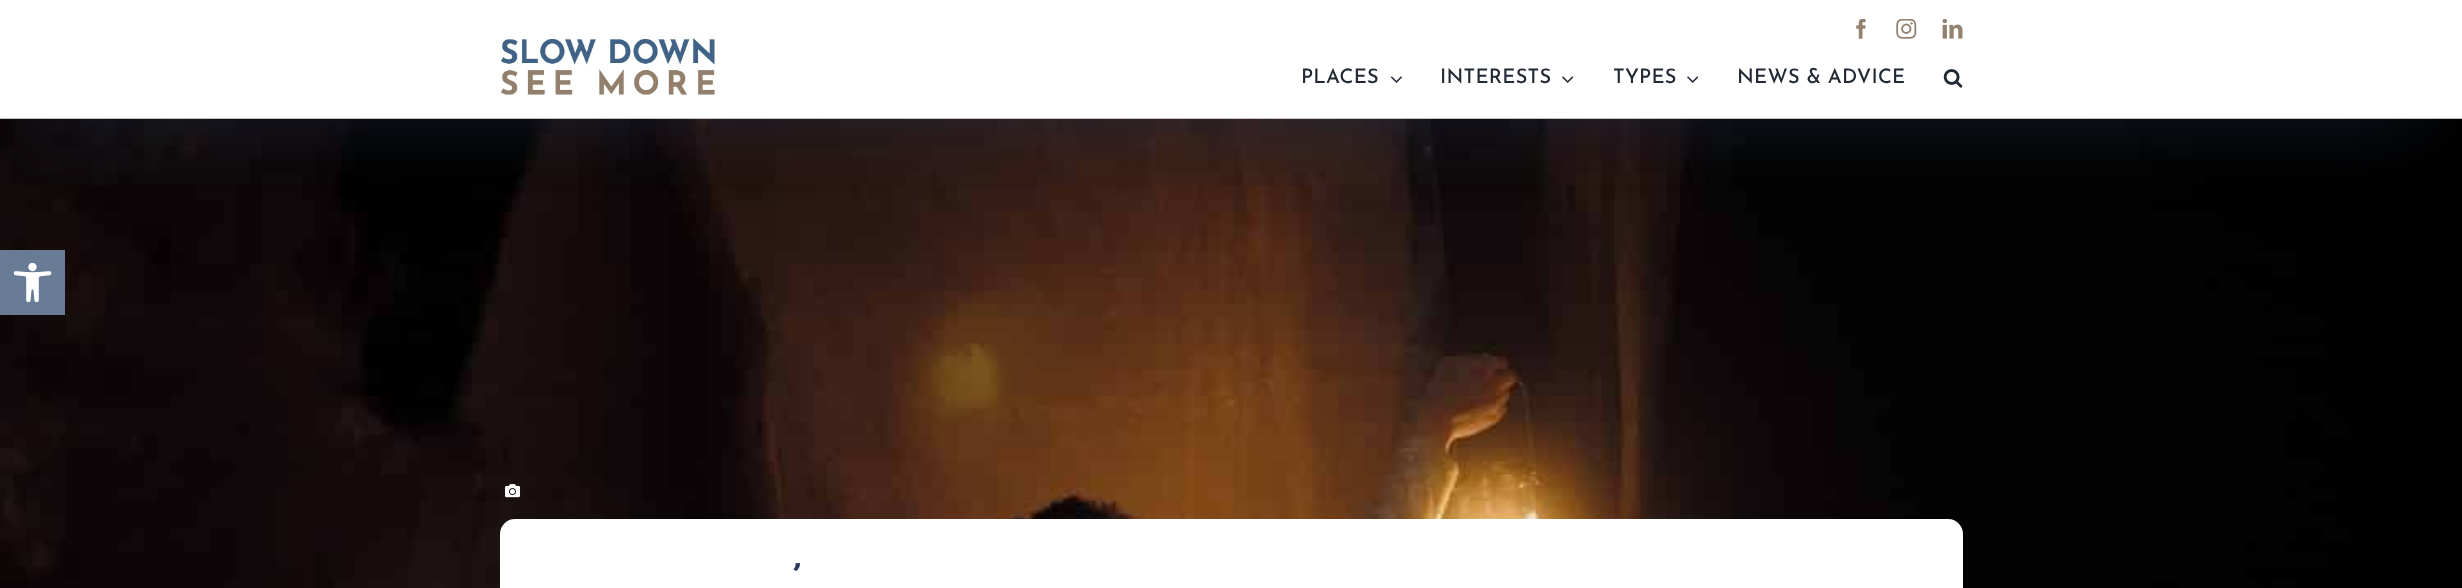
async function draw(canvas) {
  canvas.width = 2462
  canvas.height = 588
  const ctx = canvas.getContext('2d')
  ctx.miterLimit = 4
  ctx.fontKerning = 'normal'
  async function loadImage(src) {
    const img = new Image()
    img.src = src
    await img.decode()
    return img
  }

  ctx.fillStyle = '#fff'
  ctx.fillRect(0, 0, 2462, 588)
  ctx.drawImage(await loadImage('image8.png'), 0, 118, 2462, 470)
  ctx.fillStyle = '#697c96'
  ctx.fillRect(0, 250, 65, 65)
  ctx.drawImage(await loadImage('image0.png'), 13, 263, 39, 40)
  ctx.save()
  ctx.beginPath()
  ctx.moveTo(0, 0)
  ctx.lineTo(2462, 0)
  ctx.lineTo(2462, 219)
  ctx.lineTo(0, 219)
  ctx.closePath()
  ctx.moveTo(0, 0)
  ctx.lineTo(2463, 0)
  ctx.lineTo(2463, 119)
  ctx.lineTo(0, 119)
  ctx.closePath()
  ctx.clip('evenodd')
  ctx.fillStyle = '#2a3b5e'
  ctx.filter = 'blur(38px)'
  ctx.beginPath()
  ctx.rect(49, 80, 2367, 24)
  ctx.fill()
  ctx.filter = 'none'
  ctx.restore()
  ctx.drawImage(await loadImage('image1.png'), 500, 35, 215, 60)
  ctx.drawImage(await loadImage('image2.png'), 1856, 19, 10, 20)
  ctx.drawImage(await loadImage('image3.png'), 1896, 19, 21, 20)
  ctx.drawImage(await loadImage('image4.png'), 1942, 19, 21, 20)
  ctx.letterSpacing = '0.25px'
  ctx.font = '500 20px Josefin Sans'
  ctx.fillStyle = '#212934'
  ctx.fillText('PLACES', 1301, 83)
  ctx.drawImage(await loadImage('image5.png'), 1390, 76, 12, 7)
  ctx.fillText('INTERESTS', 1440, 83)
  ctx.drawImage(await loadImage('image6.png'), 1562, 76, 12, 7)
  ctx.fillText('TYPES', 1613, 83)
  ctx.drawImage(await loadImage('image6.png'), 1687, 76, 12, 7)
  ctx.fillText('NEWS & ADVICE', 1737, 83)
  ctx.drawImage(await loadImage('image7.png'), 1943, 69, 20, 19)
  ctx.drawImage(await loadImage('image9.png'), 505, 484, 15, 14)
  ctx.fillStyle = '#fff'
  ctx.beginPath()
  ctx.roundRect(500, 519, 1463, 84, 15)
  ctx.fill()
  ctx.letterSpacing = '0px'
  ctx.font = '600 50px Josefin Sans'
  ctx.fillStyle = '#2a3b5e'
  ctx.fillText('’', 792, 599)
}

draw(document.querySelector('canvas'))
